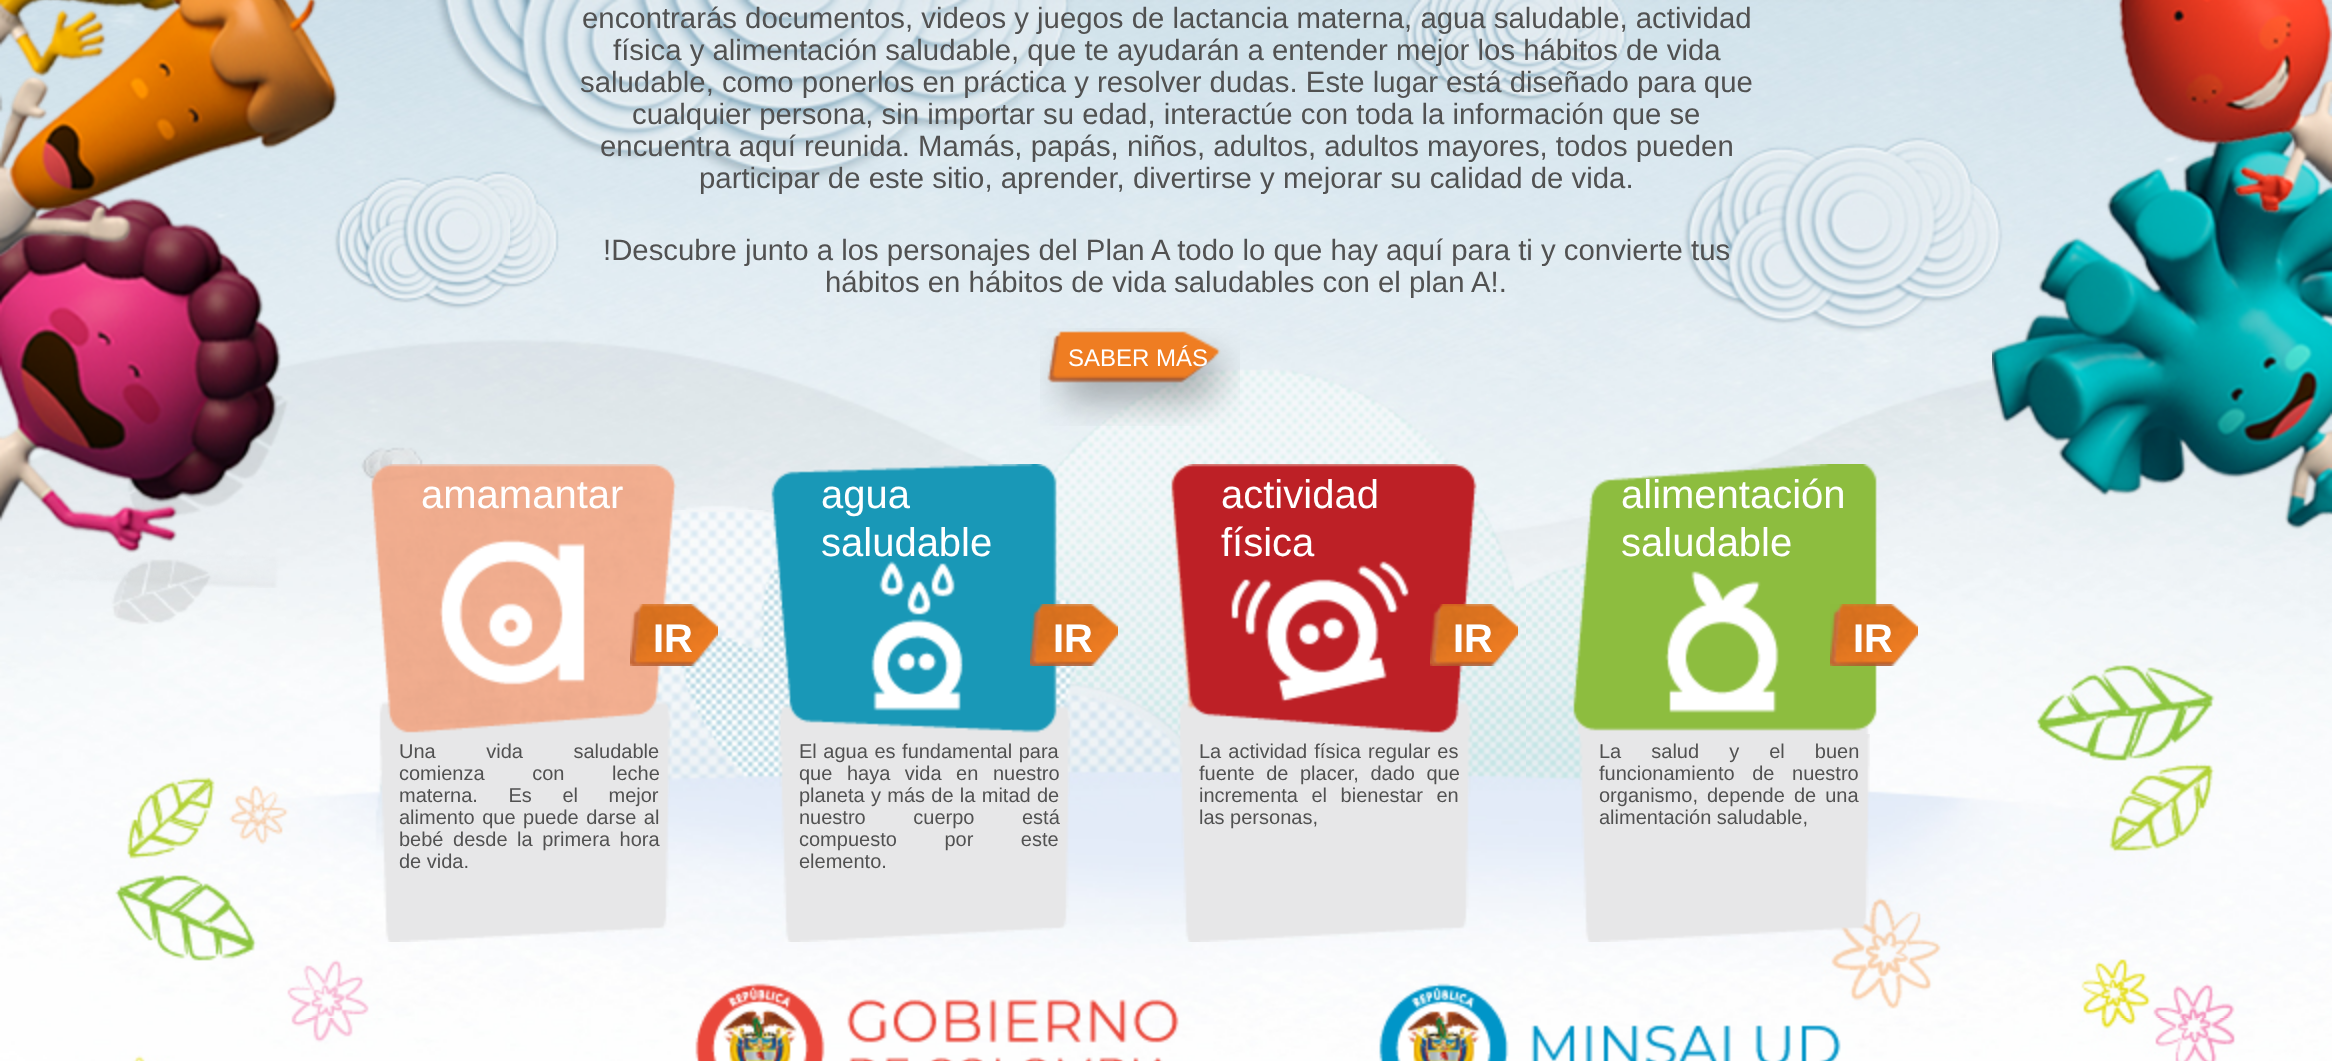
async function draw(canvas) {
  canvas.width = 2332
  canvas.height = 1061
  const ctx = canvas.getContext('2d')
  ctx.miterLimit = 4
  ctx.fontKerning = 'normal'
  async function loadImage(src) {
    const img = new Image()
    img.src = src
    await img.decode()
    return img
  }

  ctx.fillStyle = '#fff'
  ctx.fillRect(0, 0, 2332, 1061)
  ctx.drawImage(await loadImage('image0.png'), 0, 0, 2332, 1061)
  ctx.drawImage(await loadImage('image1.png'), 0, 0, 339, 588)
  ctx.font = '29.35px Liberation Sans'
  ctx.fillStyle = '#515151'
  ctx.fillText('encontrarás documentos, videos y juegos de lactancia materna, agua saludable, actividad', 582, 28)
  ctx.fillText('física y alimentación saludable, que te ayudarán a entender mejor los hábitos de vida', 613, 60)
  ctx.fillText('saludable, como ponerlos en práctica y resolver dudas. Este lugar está diseñado para que', 580, 92)
  ctx.fillText('cualquier persona, sin importar su edad, interactúe con toda la información que se', 632, 124)
  ctx.fillText('encuentra aquí reunida. Mamás, papás, niños, adultos, adultos mayores, todos pueden', 600, 156)
  ctx.fillText('participar de este sitio, aprender, divertirse y mejorar su calidad de vida.', 699, 188)
  ctx.fillText('!Descubre junto a los personajes del Plan A todo lo que hay aquí para ti y convierte tus', 603, 260)
  ctx.fillText('hábitos en hábitos de vida saludables con el plan A!.', 825, 292)
  ctx.drawImage(await loadImage('image2.png'), 1040, 328, 200, 98)
  ctx.font = '24px Liberation Sans'
  ctx.fillStyle = '#fff'
  ctx.fillText('SABER MÁS', 1068, 366)
  ctx.drawImage(await loadImage('image3.png'), 371, 464, 306, 270)
  ctx.font = '40px Liberation Sans'
  ctx.fillText('amamantar', 421, 508)
  ctx.drawImage(await loadImage('image4.png'), 630, 604, 88, 62)
  ctx.font = 'bold 40px Liberation Sans'
  ctx.fillText('IR', 653, 652)
  ctx.drawImage(await loadImage('image5.png'), 379, 734, 291, 208)
  ctx.wordSpacing = '45px'
  ctx.font = '20px Liberation Sans'
  ctx.fillStyle = '#515151'
  ctx.fillText('Una vida saludable', 399, 758)
  ctx.wordSpacing = '42px'
  ctx.fillText('comienza con leche', 399, 780)
  ctx.wordSpacing = '25px'
  ctx.fillText('materna. Es el mejor', 399, 802)
  ctx.wordSpacing = '2px'
  ctx.fillText('alimento que puede darse al', 399, 824)
  ctx.wordSpacing = '4px'
  ctx.fillText('bebé desde la primera hora', 399, 846)
  ctx.wordSpacing = '0px'
  ctx.fillText('de vida.', 399, 868)
  ctx.drawImage(await loadImage('image6.png'), 771, 464, 299, 270)
  ctx.font = '40px Liberation Sans'
  ctx.fillStyle = '#fff'
  ctx.fillText('agua', 821, 508)
  ctx.fillText('saludable', 821, 556)
  ctx.drawImage(await loadImage('image7.png'), 1030, 604, 88, 62)
  ctx.font = 'bold 40px Liberation Sans'
  ctx.fillText('IR', 1053, 652)
  ctx.drawImage(await loadImage('image8.png'), 779, 734, 291, 208)
  ctx.wordSpacing = '1px'
  ctx.font = '20px Liberation Sans'
  ctx.fillStyle = '#515151'
  ctx.fillText('El agua es fundamental para', 799, 758)
  ctx.wordSpacing = '9px'
  ctx.fillText('que haya vida en nuestro', 799, 780)
  ctx.wordSpacing = '0.75px'
  ctx.fillText('planeta y más de la mitad de', 799, 802)
  ctx.wordSpacing = '42px'
  ctx.fillText('nuestro cuerpo está', 799, 824)
  ctx.fillText('compuesto por este', 799, 846)
  ctx.wordSpacing = '0px'
  ctx.fillText('elemento.', 799, 868)
  ctx.drawImage(await loadImage('image9.png'), 1171, 464, 306, 270)
  ctx.font = '40px Liberation Sans'
  ctx.fillStyle = '#fff'
  ctx.fillText('actividad', 1221, 508)
  ctx.fillText('física', 1221, 556)
  ctx.drawImage(await loadImage('image10.png'), 1430, 604, 88, 62)
  ctx.font = 'bold 40px Liberation Sans'
  ctx.fillText('IR', 1453, 652)
  ctx.drawImage(await loadImage('image11.png'), 1180, 734, 291, 208)
  ctx.wordSpacing = '1.5px'
  ctx.font = '20px Liberation Sans'
  ctx.fillStyle = '#515151'
  ctx.fillText('La actividad física regular es', 1199, 758)
  ctx.wordSpacing = '6px'
  ctx.fillText('fuente de placer, dado que', 1199, 780)
  ctx.wordSpacing = '8px'
  ctx.fillText('incrementa el bienestar en', 1199, 802)
  ctx.wordSpacing = '0px'
  ctx.fillText('las personas,', 1199, 824)
  ctx.drawImage(await loadImage('image12.png'), 1573, 464, 304, 270)
  ctx.font = '40px Liberation Sans'
  ctx.fillStyle = '#fff'
  ctx.fillText('alimentación', 1621, 508)
  ctx.fillText('saludable', 1621, 556)
  ctx.drawImage(await loadImage('image13.png'), 1830, 604, 88, 62)
  ctx.font = 'bold 40px Liberation Sans'
  ctx.fillText('IR', 1853, 652)
  ctx.drawImage(await loadImage('image14.png'), 1579, 734, 291, 208)
  ctx.wordSpacing = '24.5px'
  ctx.font = '20px Liberation Sans'
  ctx.fillStyle = '#515151'
  ctx.fillText('La salud y el buen', 1599, 758)
  ctx.wordSpacing = '12px'
  ctx.fillText('funcionamiento de nuestro', 1599, 780)
  ctx.wordSpacing = '3.5px'
  ctx.fillText('organismo, depende de una', 1599, 802)
  ctx.wordSpacing = '0px'
  ctx.fillText('alimentación saludable,', 1599, 824)
  ctx.drawImage(await loadImage('image15.png'), 695, 983, 1146, 78)
  ctx.drawImage(await loadImage('image16.png'), 1992, 0, 340, 530)
}

draw(document.querySelector('canvas'))
